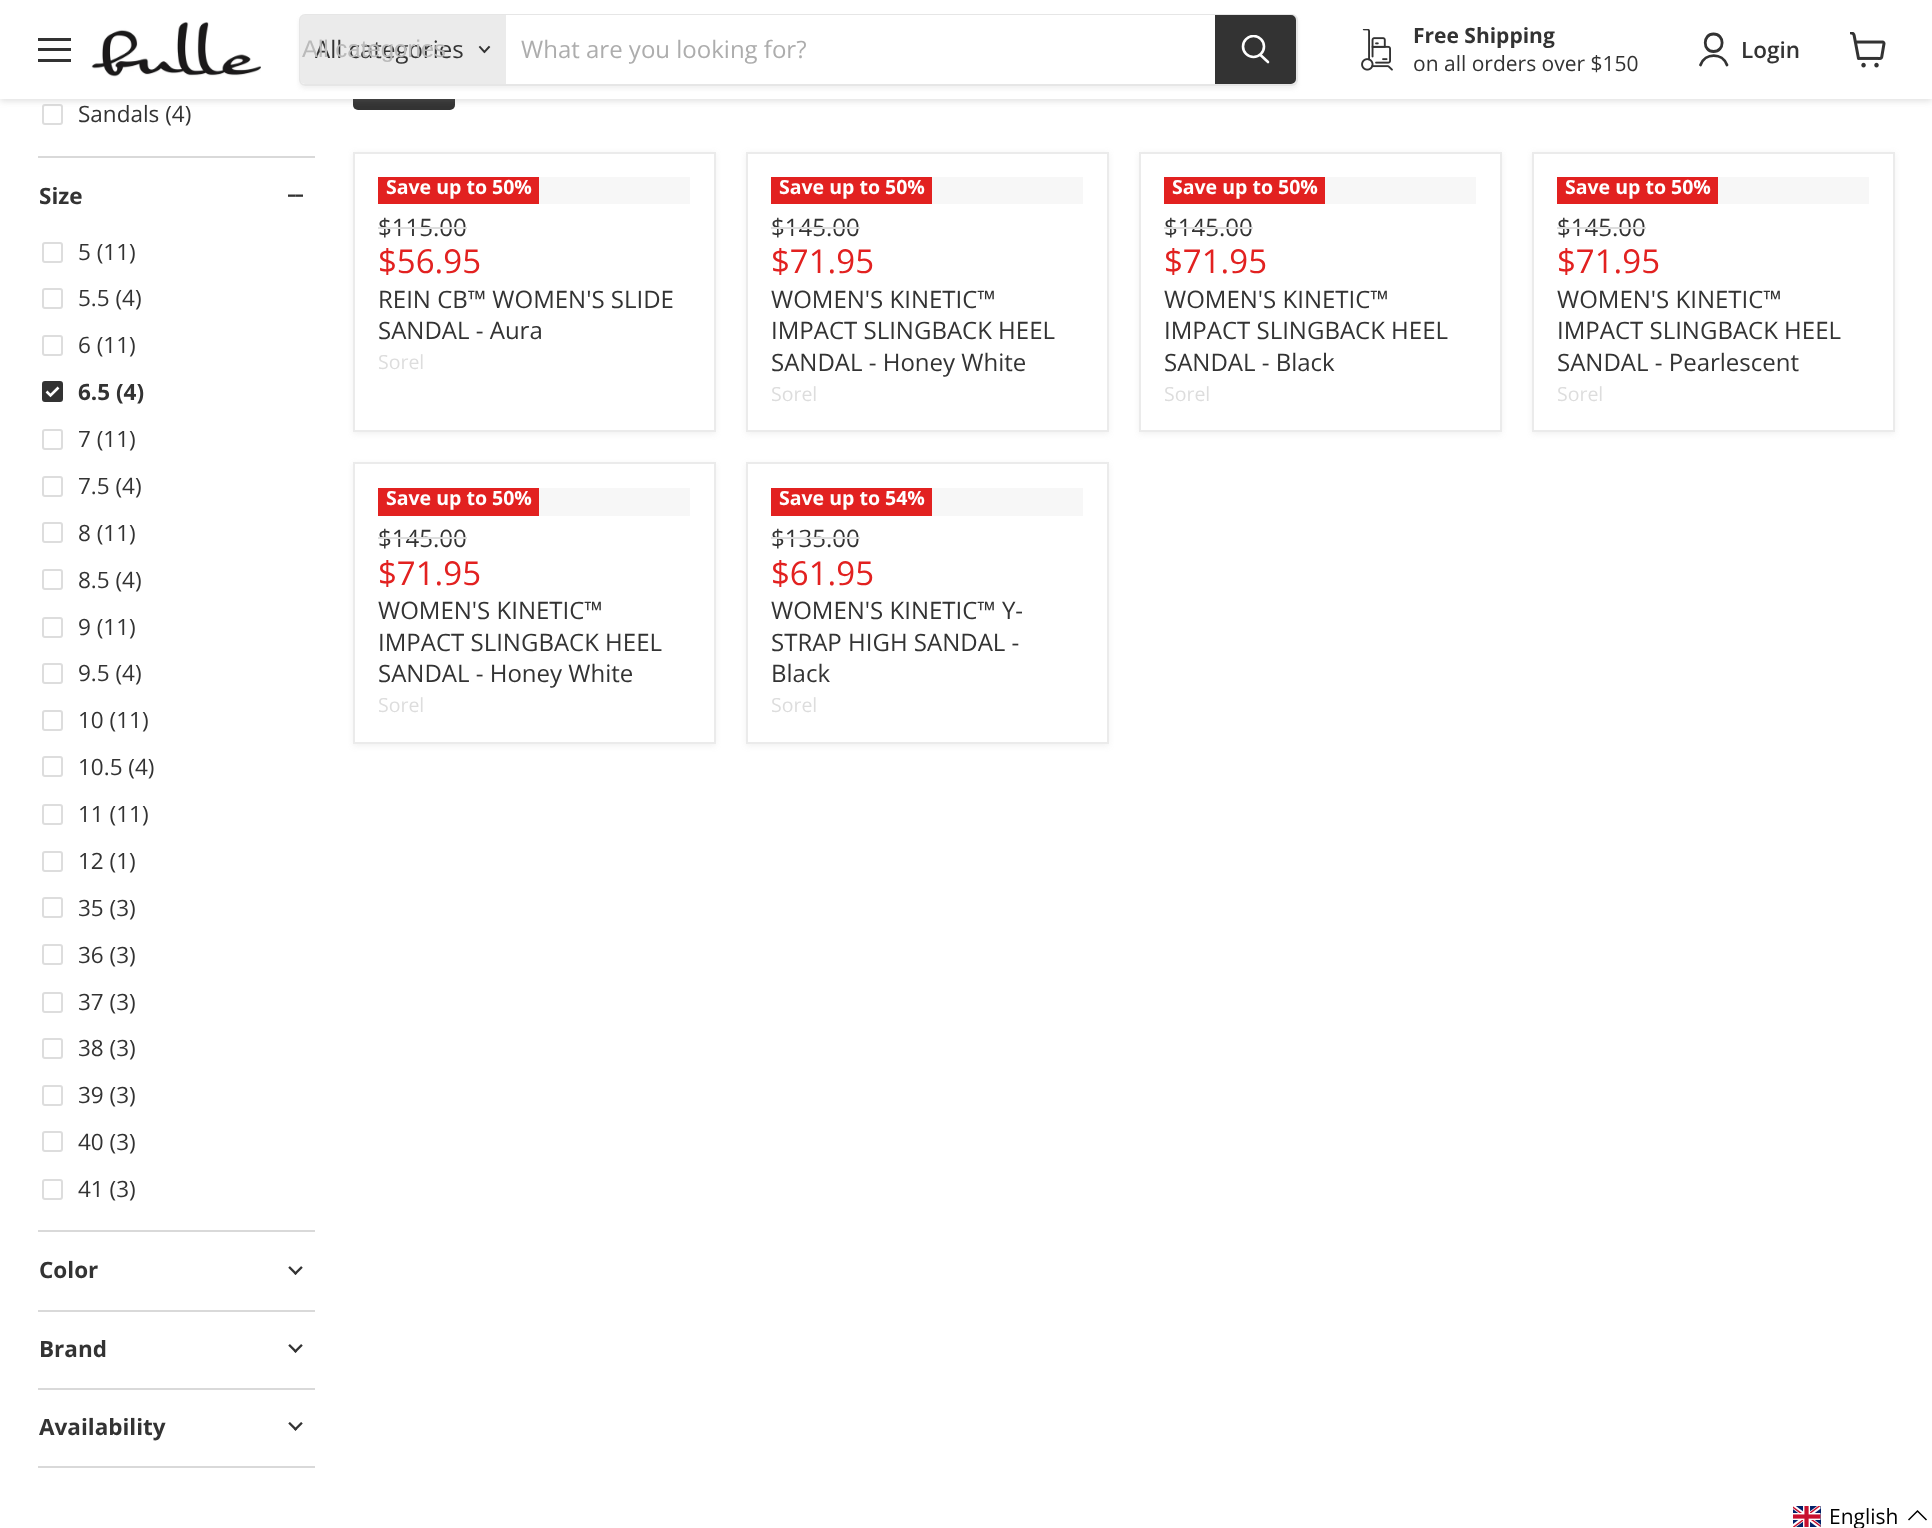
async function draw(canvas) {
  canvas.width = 1932
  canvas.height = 1528
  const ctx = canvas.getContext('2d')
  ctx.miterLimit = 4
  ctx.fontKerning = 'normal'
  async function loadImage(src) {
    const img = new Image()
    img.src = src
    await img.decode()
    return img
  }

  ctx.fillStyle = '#fff'
  ctx.fillRect(0, 0, 1932, 1528)
  ctx.beginPath()
  ctx.roundRect(43, 105, 19, 19, 2)
  ctx.strokeStyle = '#ddd'
  ctx.lineWidth = 2
  ctx.stroke()
  ctx.fillStyle = '#333'
  ctx.beginPath()
  ctx.roundRect(353, 54, 102, 56, 5)
  ctx.fill()
  ctx.fillStyle = '#80808040'
  ctx.filter = 'blur(3px)'
  ctx.beginPath()
  ctx.rect(0, 2, 1932, 99)
  ctx.fill()
  ctx.filter = 'none'
  ctx.fillStyle = '#fff'
  ctx.fillRect(0, 0, 1932, 99)
  ctx.fillStyle = '#333'
  ctx.fillRect(38, 38, 33, 3)
  ctx.fillRect(38, 48, 33, 3)
  ctx.fillRect(38, 59, 33, 3)
  ctx.drawImage(await loadImage('image0.png'), 91, 22, 170, 55)
  ctx.save()
  ctx.beginPath()
  ctx.moveTo(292, 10)
  ctx.lineTo(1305, 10)
  ctx.lineTo(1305, 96)
  ctx.lineTo(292, 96)
  ctx.closePath()
  ctx.moveTo(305, 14)
  ctx.lineTo(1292, 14)
  ctx.bezierCurveTo(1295.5, 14, 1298, 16.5, 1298, 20)
  ctx.lineTo(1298, 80)
  ctx.bezierCurveTo(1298, 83.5, 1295.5, 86, 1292, 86)
  ctx.lineTo(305, 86)
  ctx.bezierCurveTo(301.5, 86, 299, 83.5, 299, 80)
  ctx.lineTo(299, 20)
  ctx.bezierCurveTo(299, 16.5, 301.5, 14, 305, 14)
  ctx.closePath()
  ctx.clip('evenodd')
  ctx.fillStyle = '#8080801c'
  ctx.filter = 'blur(2px)'
  ctx.beginPath()
  ctx.roundRect(299, 17, 999, 72, 6)
  ctx.fill()
  ctx.filter = 'none'
  ctx.restore()
  ctx.beginPath()
  ctx.roundRect(300, 15, 997, 70, 5)
  ctx.strokeStyle = '#80808033'
  ctx.stroke()
  ctx.fillStyle = '#ebebeb'
  ctx.beginPath()
  ctx.roundRect(300, 15, 206, 69, [5, 0, 0, 5])
  ctx.fill()
  ctx.font = '24px Open Sans'
  ctx.fillStyle = '#333'
  ctx.fillText('All categories', 315, 58)
  ctx.font = '24px Liberation Sans'
  ctx.fillStyle = '#bababa'
  ctx.fillText('All categories', 302, 57)
  ctx.beginPath()
  ctx.moveTo(484.5, 52)
  ctx.lineTo(489, 47)
  ctx.moveTo(484.5, 52)
  ctx.lineTo(480, 47)
  ctx.strokeStyle = '#333'
  ctx.lineWidth = 1.9
  ctx.lineCap = 'square'
  ctx.stroke()
  ctx.fillStyle = '#fff'
  ctx.fillRect(506, 15, 709, 1)
  ctx.font = '24px Open Sans'
  ctx.fillStyle = '#adadad'
  ctx.fillText('What are you looking for?', 521, 58)
  ctx.fillStyle = '#333'
  ctx.beginPath()
  ctx.roundRect(1216, 16, 79, 67, [0, 4, 4, 0])
  ctx.fill()
  ctx.lineWidth = 2
  ctx.stroke()
  ctx.beginPath()
  ctx.moveTo(1268, 62)
  ctx.lineTo(1260.5, 55)
  ctx.strokeStyle = '#fff'
  ctx.lineWidth = 2.6
  ctx.lineCap = 'round'
  ctx.stroke()
  ctx.save()
  ctx.beginPath()
  ctx.rect(1241, 35, 30, 31)
  ctx.clip()
  ctx.beginPath()
  ctx.arc(1253.5, 46.5, 10.5, 0, 2 * Math.PI)
  ctx.stroke()
  ctx.restore()
  ctx.drawImage(await loadImage('image1.png'), 1361, 29, 32, 42)
  ctx.font = 'bold 21px Open Sans'
  ctx.fillText('Free Shipping', 1413, 43)
  ctx.font = '21px Open Sans'
  ctx.fillText('on all orders over $150', 1413, 71)
  ctx.beginPath()
  ctx.moveTo(1713.5, 51.5)
  ctx.bezierCurveTo(1725, 51.5, 1725, 34, 1713.5, 34)
  ctx.bezierCurveTo(1702.5, 34, 1702.5, 51.5, 1713.5, 51.5)
  ctx.closePath()
  ctx.moveTo(1727, 65)
  ctx.bezierCurveTo(1722.5, 52.5, 1705, 52.5, 1700.5, 65)
  ctx.strokeStyle = '#333'
  ctx.lineWidth = 2.8
  ctx.lineJoin = 'round'
  ctx.stroke()
  ctx.font = '600 22.5px Open Sans'
  ctx.fillText('Login', 1741, 58)
  ctx.drawImage(await loadImage('image2.png'), 1850, 32, 36, 36)
  ctx.font = '22.5px Open Sans'
  ctx.fillText('Sandals (4)', 78, 122)
  ctx.fillStyle = '#d9d9d9'
  ctx.fillRect(38, 156, 277, 2)
  ctx.font = 'bold 22.5px Open Sans'
  ctx.fillStyle = '#333'
  ctx.fillText('Size', 39, 204)
  ctx.drawImage(await loadImage('image3.png'), 288, 194, 15, 3)
  ctx.beginPath()
  ctx.roundRect(43, 243, 19, 19, 2)
  ctx.strokeStyle = '#ddd'
  ctx.lineWidth = 2
  ctx.lineJoin = 'miter'
  ctx.stroke()
  ctx.font = '22.5px Open Sans'
  ctx.fillText('5 (11)', 78, 260)
  ctx.beginPath()
  ctx.roundRect(43, 289, 19, 19, 2)
  ctx.stroke()
  ctx.fillText('5.5 (4)', 78, 306)
  ctx.beginPath()
  ctx.roundRect(43, 336, 19, 19, 2)
  ctx.stroke()
  ctx.fillText('6 (11)', 78, 353)
  ctx.beginPath()
  ctx.roundRect(43, 382, 19, 19, 2)
  ctx.fill()
  ctx.strokeStyle = '#333'
  ctx.stroke()
  ctx.beginPath()
  ctx.moveTo(46.5, 391.5)
  ctx.lineTo(50.5, 395.5)
  ctx.lineTo(58.5, 387.5)
  ctx.strokeStyle = '#fff'
  ctx.lineWidth = 2.6
  ctx.lineCap = 'butt'
  ctx.stroke()
  ctx.font = 'bold 22.5px Open Sans'
  ctx.fillText('6.5 (4)', 78, 400)
  ctx.beginPath()
  ctx.roundRect(43, 430, 19, 19, 2)
  ctx.strokeStyle = '#ddd'
  ctx.lineWidth = 2
  ctx.stroke()
  ctx.font = '22.5px Open Sans'
  ctx.fillText('7 (11)', 78, 447)
  ctx.beginPath()
  ctx.roundRect(43, 477, 19, 19, 2)
  ctx.stroke()
  ctx.fillText('7.5 (4)', 78, 494)
  ctx.beginPath()
  ctx.roundRect(43, 523, 19, 19, 2)
  ctx.stroke()
  ctx.fillText('8 (11)', 78, 541)
  ctx.beginPath()
  ctx.roundRect(43, 570, 19, 19, 2)
  ctx.stroke()
  ctx.fillText('8.5 (4)', 78, 588)
  ctx.beginPath()
  ctx.roundRect(43, 618, 19, 19, 2)
  ctx.stroke()
  ctx.fillText('9 (11)', 78, 635)
  ctx.beginPath()
  ctx.roundRect(43, 664, 19, 19, 2)
  ctx.stroke()
  ctx.fillText('9.5 (4)', 78, 681)
  ctx.beginPath()
  ctx.roundRect(43, 711, 19, 19, 2)
  ctx.stroke()
  ctx.fillText('10 (11)', 78, 728)
  ctx.beginPath()
  ctx.roundRect(43, 757, 19, 19, 2)
  ctx.stroke()
  ctx.fillText('10.5 (4)', 78, 775)
  ctx.beginPath()
  ctx.roundRect(43, 805, 19, 19, 2)
  ctx.stroke()
  ctx.fillText('11 (11)', 78, 822)
  ctx.beginPath()
  ctx.roundRect(43, 852, 19, 19, 2)
  ctx.stroke()
  ctx.fillText('12 (1)', 78, 869)
  ctx.beginPath()
  ctx.roundRect(43, 898, 19, 19, 2)
  ctx.stroke()
  ctx.fillText('35 (3)', 78, 916)
  ctx.beginPath()
  ctx.roundRect(43, 945, 19, 19, 2)
  ctx.stroke()
  ctx.fillText('36 (3)', 78, 963)
  ctx.beginPath()
  ctx.roundRect(43, 993, 19, 19, 2)
  ctx.stroke()
  ctx.fillText('37 (3)', 78, 1010)
  ctx.beginPath()
  ctx.roundRect(43, 1039, 19, 19, 2)
  ctx.stroke()
  ctx.fillText('38 (3)', 78, 1056)
  ctx.beginPath()
  ctx.roundRect(43, 1086, 19, 19, 2)
  ctx.stroke()
  ctx.fillText('39 (3)', 78, 1103)
  ctx.beginPath()
  ctx.roundRect(43, 1132, 19, 19, 2)
  ctx.stroke()
  ctx.fillText('40 (3)', 78, 1150)
  ctx.beginPath()
  ctx.roundRect(43, 1180, 19, 19, 2)
  ctx.stroke()
  ctx.fillText('41 (3)', 78, 1197)
  ctx.fillStyle = '#d9d9d9'
  ctx.fillRect(38, 1230, 277, 2)
  ctx.font = 'bold 22.5px Open Sans'
  ctx.fillStyle = '#333'
  ctx.fillText('Color', 39, 1278)
  ctx.drawImage(await loadImage('image4.png'), 288, 1266, 15, 9)
  ctx.fillStyle = '#d9d9d9'
  ctx.fillRect(38, 1310, 277, 2)
  ctx.fillStyle = '#333'
  ctx.fillText('Brand', 39, 1357)
  ctx.drawImage(await loadImage('image5.png'), 288, 1344, 15, 9)
  ctx.fillStyle = '#d9d9d9'
  ctx.fillRect(38, 1388, 277, 2)
  ctx.fillRect(38, 1466, 277, 2)
  ctx.fillStyle = '#333'
  ctx.fillText('Availability', 39, 1435)
  ctx.drawImage(await loadImage('image6.png'), 288, 1422, 15, 9)
  ctx.fillStyle = '#8080801c'
  ctx.filter = 'blur(3px)'
  ctx.beginPath()
  ctx.rect(353, 153, 363, 281)
  ctx.fill()
  ctx.filter = 'none'
  ctx.fillStyle = '#fff'
  ctx.beginPath()
  ctx.rect(354, 153, 361, 278)
  ctx.fill()
  ctx.strokeStyle = '#ebebeb'
  ctx.stroke()
  ctx.fillStyle = '#e22120'
  ctx.fillRect(378, 177, 161, 27)
  ctx.font = 'bold 19.5px Open Sans'
  ctx.fillStyle = '#fff'
  ctx.fillText('Save up to 50%', 386, 194)
  ctx.fillStyle = '#f7f7f7'
  ctx.fillRect(539, 177, 151, 27)
  ctx.font = '24px Open Sans'
  ctx.fillStyle = '#333'
  ctx.fillText('$115.00', 378, 236)
  ctx.fillStyle = '#ddd'
  ctx.fillRect(378, 227, 89, 2)
  ctx.font = '33px Open Sans'
  ctx.fillStyle = '#e22120'
  ctx.fillText('$56.95', 378, 273)
  ctx.font = '24px Open Sans'
  ctx.fillStyle = '#333'
  ctx.fillText('REIN CB™ WOMEN\'S SLIDE', 378, 308)
  ctx.fillText('SANDAL - Aura', 378, 339)
  ctx.font = '19.5px Open Sans'
  ctx.fillStyle = '#ddd'
  ctx.fillText('Sorel', 378, 369)
  ctx.fillStyle = '#8080801c'
  ctx.filter = 'blur(3px)'
  ctx.beginPath()
  ctx.rect(746, 153, 363, 281)
  ctx.fill()
  ctx.filter = 'none'
  ctx.fillStyle = '#fff'
  ctx.beginPath()
  ctx.rect(747, 153, 361, 278)
  ctx.fill()
  ctx.stroke()
  ctx.fillStyle = '#e22120'
  ctx.fillRect(771, 177, 161, 27)
  ctx.font = 'bold 19.5px Open Sans'
  ctx.fillStyle = '#fff'
  ctx.fillText('Save up to 50%', 779, 194)
  ctx.fillStyle = '#f7f7f7'
  ctx.fillRect(932, 177, 151, 27)
  ctx.font = '24px Open Sans'
  ctx.fillStyle = '#333'
  ctx.fillText('$145.00', 771, 236)
  ctx.fillStyle = '#ddd'
  ctx.fillRect(771, 227, 89, 2)
  ctx.font = '33px Open Sans'
  ctx.fillStyle = '#e22120'
  ctx.fillText('$71.95', 771, 273)
  ctx.font = '24px Open Sans'
  ctx.fillStyle = '#333'
  ctx.fillText('WOMEN\'S KINETIC™', 771, 308)
  ctx.fillText('IMPACT SLINGBACK HEEL', 771, 339)
  ctx.fillText('SANDAL - Honey White', 771, 371)
  ctx.font = '19.5px Open Sans'
  ctx.fillStyle = '#ddd'
  ctx.fillText('Sorel', 771, 401)
  ctx.fillStyle = '#8080801c'
  ctx.filter = 'blur(3px)'
  ctx.beginPath()
  ctx.rect(1139, 153, 363, 281)
  ctx.fill()
  ctx.filter = 'none'
  ctx.fillStyle = '#fff'
  ctx.beginPath()
  ctx.rect(1140, 153, 361, 278)
  ctx.fill()
  ctx.stroke()
  ctx.fillStyle = '#e22120'
  ctx.fillRect(1164, 177, 161, 27)
  ctx.font = 'bold 19.5px Open Sans'
  ctx.fillStyle = '#fff'
  ctx.fillText('Save up to 50%', 1172, 194)
  ctx.fillStyle = '#f7f7f7'
  ctx.fillRect(1325, 177, 151, 27)
  ctx.font = '24px Open Sans'
  ctx.fillStyle = '#333'
  ctx.fillText('$145.00', 1164, 236)
  ctx.fillStyle = '#ddd'
  ctx.fillRect(1164, 227, 89, 2)
  ctx.font = '33px Open Sans'
  ctx.fillStyle = '#e22120'
  ctx.fillText('$71.95', 1164, 273)
  ctx.font = '24px Open Sans'
  ctx.fillStyle = '#333'
  ctx.fillText('WOMEN\'S KINETIC™', 1164, 308)
  ctx.fillText('IMPACT SLINGBACK HEEL', 1164, 339)
  ctx.fillText('SANDAL - Black', 1164, 371)
  ctx.font = '19.5px Open Sans'
  ctx.fillStyle = '#ddd'
  ctx.fillText('Sorel', 1164, 401)
  ctx.fillStyle = '#8080801c'
  ctx.filter = 'blur(3px)'
  ctx.beginPath()
  ctx.rect(1532, 153, 363, 281)
  ctx.fill()
  ctx.filter = 'none'
  ctx.fillStyle = '#fff'
  ctx.beginPath()
  ctx.rect(1533, 153, 361, 278)
  ctx.fill()
  ctx.stroke()
  ctx.fillStyle = '#e22120'
  ctx.fillRect(1557, 177, 161, 27)
  ctx.font = 'bold 19.5px Open Sans'
  ctx.fillStyle = '#fff'
  ctx.fillText('Save up to 50%', 1565, 194)
  ctx.fillStyle = '#f7f7f7'
  ctx.fillRect(1718, 177, 151, 27)
  ctx.font = '24px Open Sans'
  ctx.fillStyle = '#333'
  ctx.fillText('$145.00', 1557, 236)
  ctx.fillStyle = '#ddd'
  ctx.fillRect(1557, 227, 89, 2)
  ctx.font = '33px Open Sans'
  ctx.fillStyle = '#e22120'
  ctx.fillText('$71.95', 1557, 273)
  ctx.font = '24px Open Sans'
  ctx.fillStyle = '#333'
  ctx.fillText('WOMEN\'S KINETIC™', 1557, 308)
  ctx.fillText('IMPACT SLINGBACK HEEL', 1557, 339)
  ctx.fillText('SANDAL - Pearlescent', 1557, 371)
  ctx.font = '19.5px Open Sans'
  ctx.fillStyle = '#ddd'
  ctx.fillText('Sorel', 1557, 401)
  ctx.fillStyle = '#8080801c'
  ctx.filter = 'blur(3px)'
  ctx.beginPath()
  ctx.rect(353, 464, 363, 282)
  ctx.fill()
  ctx.filter = 'none'
  ctx.fillStyle = '#fff'
  ctx.beginPath()
  ctx.rect(354, 463, 361, 280)
  ctx.fill()
  ctx.stroke()
  ctx.fillStyle = '#e22120'
  ctx.fillRect(378, 488, 161, 28)
  ctx.font = 'bold 19.5px Open Sans'
  ctx.fillStyle = '#fff'
  ctx.fillText('Save up to 50%', 386, 505)
  ctx.fillStyle = '#f7f7f7'
  ctx.fillRect(539, 488, 151, 28)
  ctx.font = '24px Open Sans'
  ctx.fillStyle = '#333'
  ctx.fillText('$145.00', 378, 547)
  ctx.fillStyle = '#ddd'
  ctx.fillRect(378, 537, 89, 2)
  ctx.font = '33px Open Sans'
  ctx.fillStyle = '#e22120'
  ctx.fillText('$71.95', 378, 585)
  ctx.font = '24px Open Sans'
  ctx.fillStyle = '#333'
  ctx.fillText('WOMEN\'S KINETIC™', 378, 619)
  ctx.fillText('IMPACT SLINGBACK HEEL', 378, 651)
  ctx.fillText('SANDAL - Honey White', 378, 682)
  ctx.font = '19.5px Open Sans'
  ctx.fillStyle = '#ddd'
  ctx.fillText('Sorel', 378, 712)
  ctx.fillStyle = '#8080801c'
  ctx.filter = 'blur(3px)'
  ctx.beginPath()
  ctx.rect(746, 464, 363, 282)
  ctx.fill()
  ctx.filter = 'none'
  ctx.fillStyle = '#fff'
  ctx.beginPath()
  ctx.rect(747, 463, 361, 280)
  ctx.fill()
  ctx.stroke()
  ctx.fillStyle = '#e22120'
  ctx.fillRect(771, 488, 161, 28)
  ctx.font = 'bold 19.5px Open Sans'
  ctx.fillStyle = '#fff'
  ctx.fillText('Save up to 54%', 779, 505)
  ctx.fillStyle = '#f7f7f7'
  ctx.fillRect(932, 488, 151, 28)
  ctx.font = '24px Open Sans'
  ctx.fillStyle = '#333'
  ctx.fillText('$135.00', 771, 547)
  ctx.fillStyle = '#ddd'
  ctx.fillRect(771, 537, 89, 2)
  ctx.font = '33px Open Sans'
  ctx.fillStyle = '#e22120'
  ctx.fillText('$61.95', 771, 585)
  ctx.font = '24px Open Sans'
  ctx.fillStyle = '#333'
  ctx.fillText('WOMEN\'S KINETIC™ Y-', 771, 619)
  ctx.fillText('STRAP HIGH SANDAL -', 771, 651)
  ctx.fillText('Black', 771, 682)
  ctx.font = '19.5px Open Sans'
  ctx.fillStyle = '#ddd'
  ctx.fillText('Sorel', 771, 712)
  ctx.drawImage(await loadImage('image7.png'), 1793, 1506, 28, 21)
  ctx.font = '21px Open Sans'
  ctx.fillStyle = '#000'
  ctx.fillText('English', 1829, 1524)
  ctx.beginPath()
  ctx.moveTo(1926.5, 1520)
  ctx.lineTo(1917.5, 1511)
  ctx.lineTo(1908.5, 1520)
  ctx.strokeStyle = '#000'
  ctx.lineWidth = 1.5
  ctx.stroke()
}

draw(document.querySelector('canvas'))
